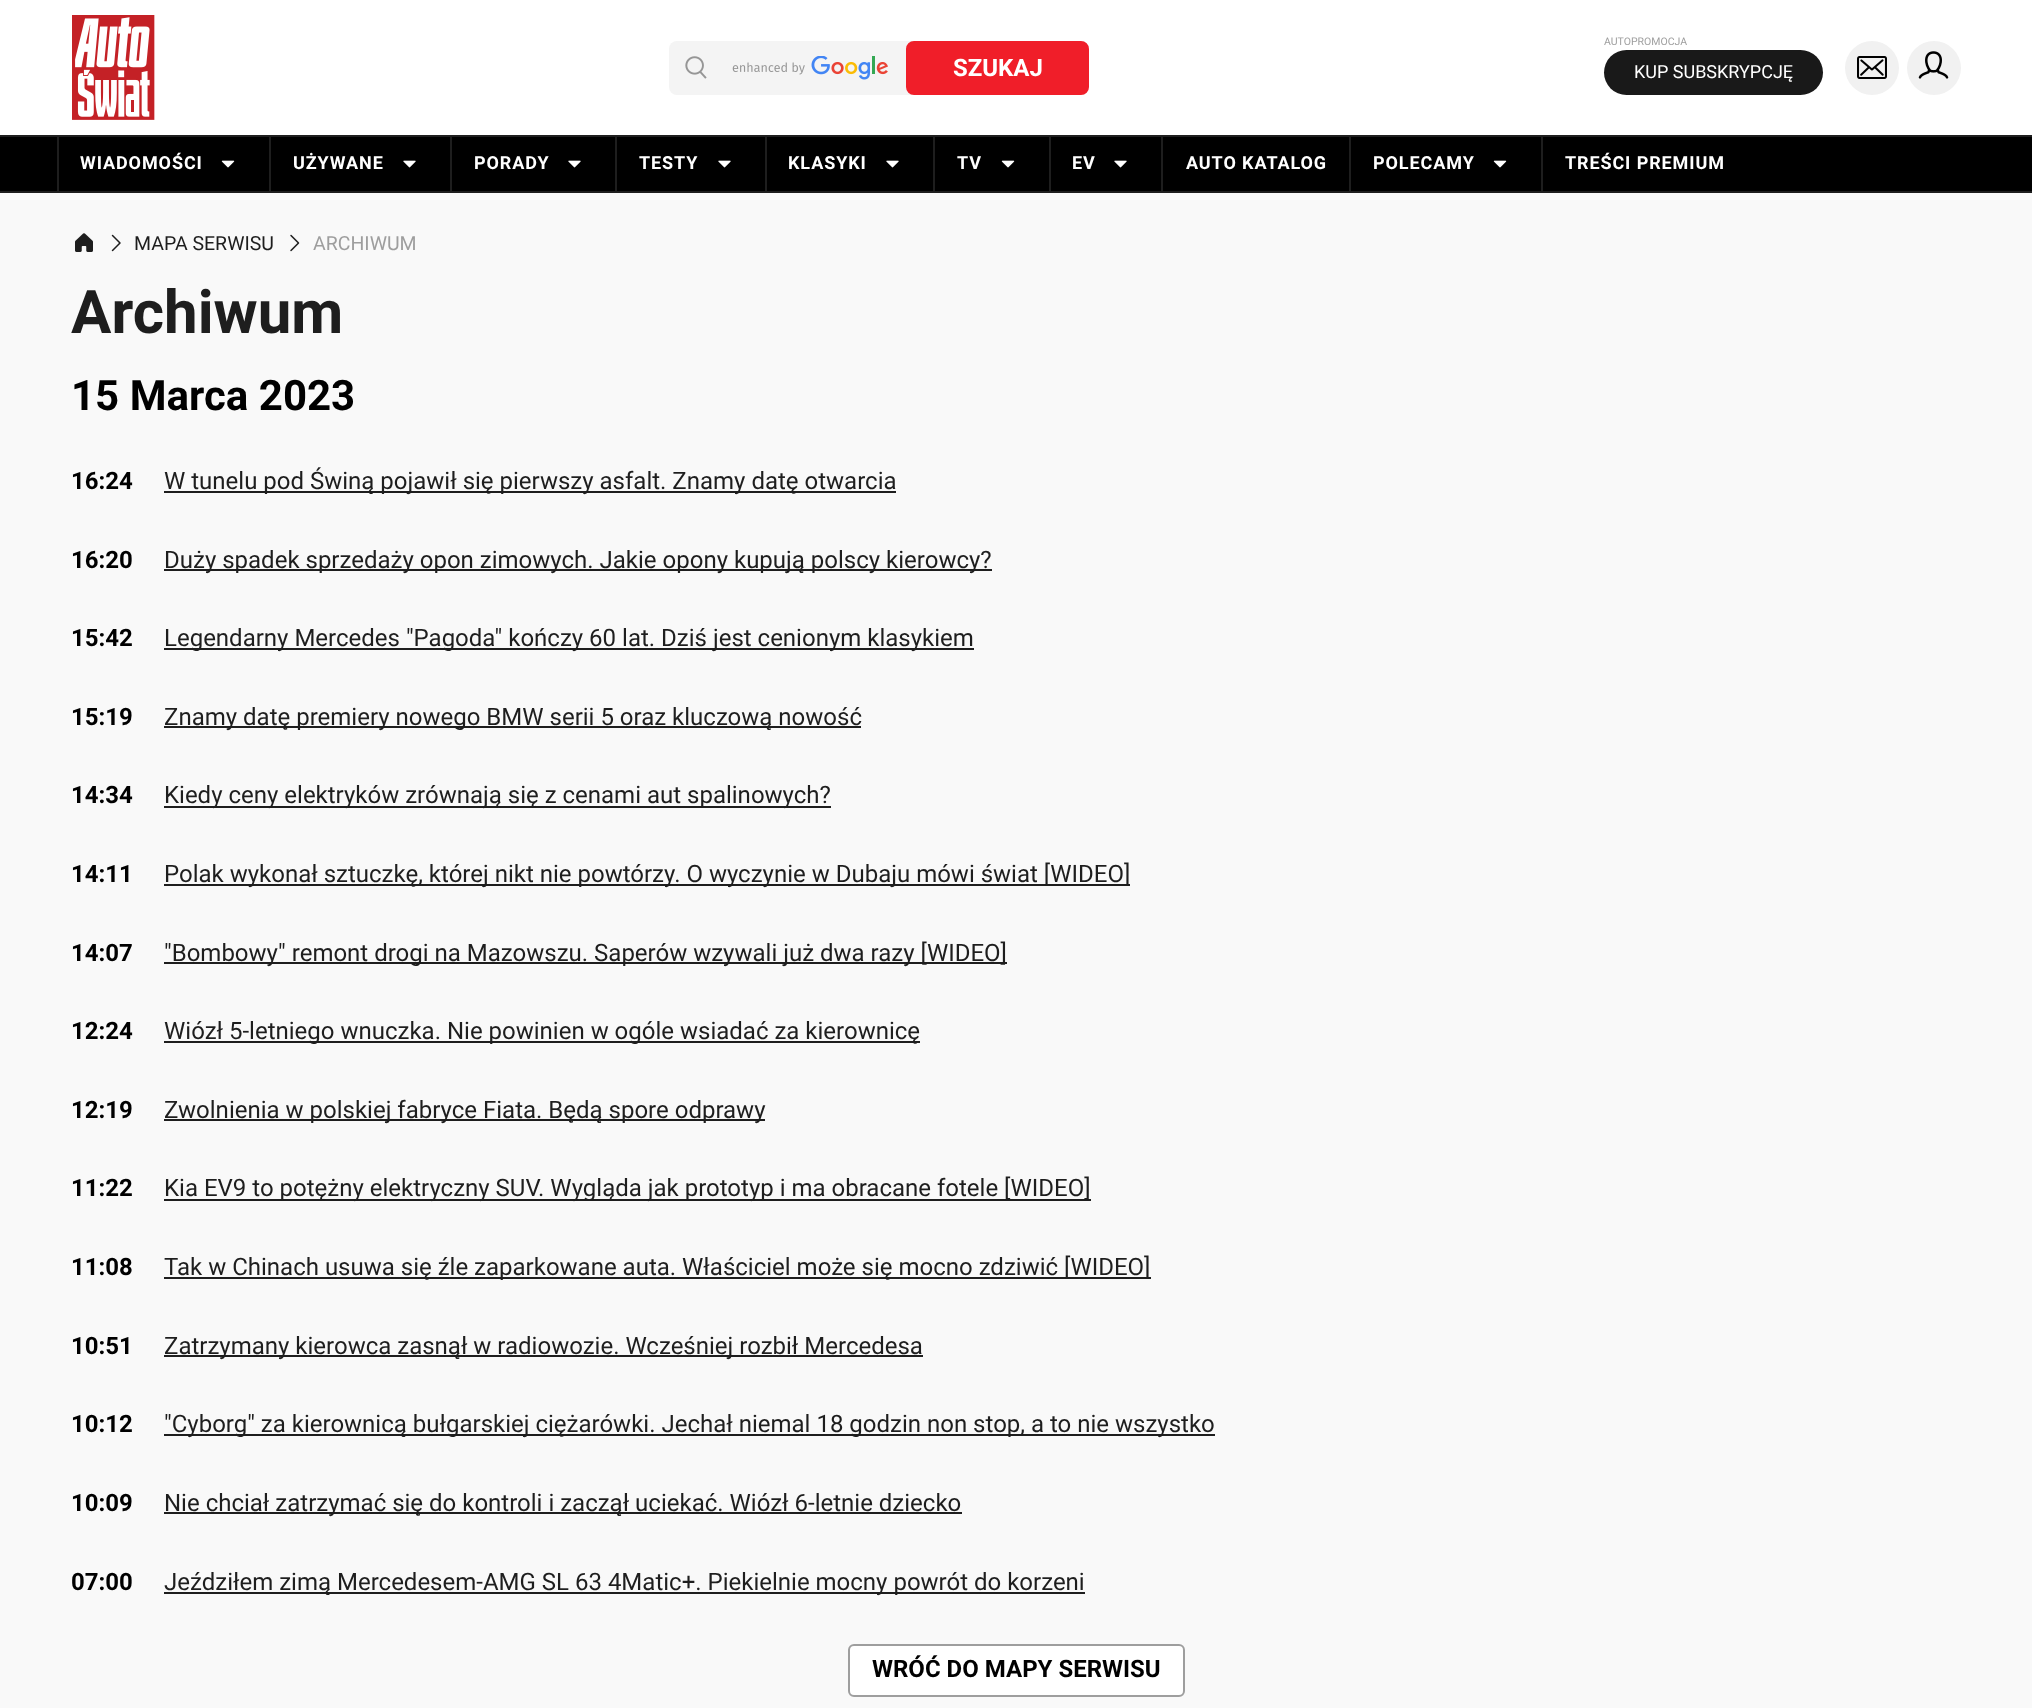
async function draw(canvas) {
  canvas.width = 2032
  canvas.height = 1708
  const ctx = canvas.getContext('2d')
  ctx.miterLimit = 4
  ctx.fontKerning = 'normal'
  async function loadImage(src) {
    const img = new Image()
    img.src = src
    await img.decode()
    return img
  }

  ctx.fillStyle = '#f9f9f9'
  ctx.fillRect(0, 0, 2032, 1708)
  ctx.fillStyle = '#fff'
  ctx.fillRect(0, 0, 2032, 135)
  ctx.drawImage(await loadImage('image0.png'), 72, 15, 83, 105)
  ctx.fillStyle = '#f4f4f4'
  ctx.beginPath()
  ctx.roundRect(669, 41, 420, 54, 8)
  ctx.fill()
  ctx.drawImage(await loadImage('image1.png'), 685, 56, 22, 23)
  ctx.drawImage(await loadImage('image2.png'), 732, 56, 156, 24)
  ctx.fillStyle = '#f01e29'
  ctx.beginPath()
  ctx.roundRect(907, 42, 181, 52, 7)
  ctx.fill()
  ctx.strokeStyle = '#f01e29'
  ctx.lineWidth = 2
  ctx.stroke()
  ctx.font = 'bold 24px Roboto'
  ctx.fillStyle = '#fff'
  ctx.fillText('SZUKAJ', 953, 76)
  ctx.font = '10.5px Roboto'
  ctx.fillStyle = '#9e9e9e'
  ctx.fillText('AUTOPROMOCJA', 1604, 45)
  ctx.fillStyle = '#191919'
  ctx.beginPath()
  ctx.roundRect(1604, 50, 219, 45, 22.5)
  ctx.fill()
  ctx.font = '18px Roboto'
  ctx.fillStyle = '#fff'
  ctx.fillText('KUP SUBSKRYPCJĘ', 1634, 78)
  ctx.fillStyle = '#f1f1f1'
  ctx.beginPath()
  ctx.arc(1872, 68, 27, 0, 2 * Math.PI)
  ctx.fill()
  ctx.drawImage(await loadImage('image3.png'), 1857, 56, 30, 23)
  ctx.beginPath()
  ctx.arc(1934, 68, 27, 0, 2 * Math.PI)
  ctx.fill()
  ctx.drawImage(await loadImage('image4.png'), 1918, 51, 31, 28)
  ctx.fillStyle = '#000'
  ctx.fillRect(0, 137, 2032, 54)
  ctx.fillStyle = '#1e1e1e'
  ctx.fillRect(0, 135, 2032, 2)
  ctx.fillRect(0, 191, 2032, 2)
  ctx.fillRect(57, 137, 2, 54)
  ctx.letterSpacing = '0.9px'
  ctx.font = 'bold 18px Roboto'
  ctx.fillStyle = '#fff'
  ctx.fillText('WIADOMOŚCI', 80, 169)
  ctx.drawImage(await loadImage('image5.png'), 221, 160, 14, 8)
  ctx.fillStyle = '#1e1e1e'
  ctx.fillRect(269, 137, 2, 54)
  ctx.fillStyle = '#fff'
  ctx.fillText('UŻYWANE', 293, 169)
  ctx.drawImage(await loadImage('image6.png'), 403, 160, 13, 8)
  ctx.fillStyle = '#1e1e1e'
  ctx.fillRect(450, 137, 2, 54)
  ctx.fillStyle = '#fff'
  ctx.fillText('PORADY', 474, 169)
  ctx.drawImage(await loadImage('image6.png'), 568, 160, 13, 8)
  ctx.fillStyle = '#1e1e1e'
  ctx.fillRect(615, 137, 2, 54)
  ctx.fillStyle = '#fff'
  ctx.fillText('TESTY', 639, 169)
  ctx.drawImage(await loadImage('image6.png'), 718, 160, 13, 8)
  ctx.fillStyle = '#1e1e1e'
  ctx.fillRect(765, 137, 2, 54)
  ctx.fillStyle = '#fff'
  ctx.fillText('KLASYKI', 788, 169)
  ctx.drawImage(await loadImage('image6.png'), 886, 160, 13, 8)
  ctx.fillStyle = '#1e1e1e'
  ctx.fillRect(933, 137, 2, 54)
  ctx.fillStyle = '#fff'
  ctx.fillText('TV', 957, 169)
  ctx.drawImage(await loadImage('image5.png'), 1001, 160, 14, 8)
  ctx.fillStyle = '#1e1e1e'
  ctx.fillRect(1049, 137, 2, 54)
  ctx.fillStyle = '#fff'
  ctx.fillText('EV', 1072, 169)
  ctx.drawImage(await loadImage('image6.png'), 1114, 160, 13, 8)
  ctx.fillStyle = '#1e1e1e'
  ctx.fillRect(1161, 137, 2, 54)
  ctx.fillStyle = '#fff'
  ctx.fillText('AUTO KATALOG', 1186, 169)
  ctx.fillStyle = '#1e1e1e'
  ctx.fillRect(1349, 137, 2, 54)
  ctx.fillStyle = '#fff'
  ctx.fillText('POLECAMY', 1373, 169)
  ctx.drawImage(await loadImage('image5.png'), 1493, 160, 14, 8)
  ctx.fillStyle = '#1e1e1e'
  ctx.fillRect(1541, 137, 2, 54)
  ctx.fillStyle = '#fff'
  ctx.fillText('TREŚCI PREMIUM', 1565, 169)
  ctx.drawImage(await loadImage('image7.png'), 75, 233, 18, 19)
  ctx.drawImage(await loadImage('image8.png'), 111, 234, 10, 18)
  ctx.letterSpacing = '0px'
  ctx.font = '19.5px Roboto'
  ctx.fillStyle = '#1e1e1e'
  ctx.fillText('MAPA SERWISU', 134, 250)
  ctx.drawImage(await loadImage('image9.png'), 290, 234, 10, 18)
  ctx.fillStyle = '#9e9e9e'
  ctx.fillText('ARCHIWUM', 313, 250)
  ctx.font = 'bold 60px Roboto'
  ctx.fillStyle = '#1e1e1e'
  ctx.fillText('Archiwum', 71, 333)
  ctx.font = 'bold 42px Roboto'
  ctx.fillStyle = '#000'
  ctx.fillText('15 Marca 2023', 71, 410)
  ctx.font = 'bold 24px Roboto'
  ctx.fillText('16:24', 71, 489)
  ctx.fillStyle = '#1e1e1e'
  ctx.fillRect(164, 491, 732, 2)
  ctx.font = '24px Roboto'
  ctx.fillText('W tunelu pod Świną pojawił się pierwszy asfalt. Znamy datę otwarcia', 164, 489)
  ctx.font = 'bold 24px Roboto'
  ctx.fillStyle = '#000'
  ctx.fillText('16:20', 71, 568)
  ctx.fillStyle = '#1e1e1e'
  ctx.fillRect(164, 569, 828, 2)
  ctx.font = '24px Roboto'
  ctx.fillText('Duży spadek sprzedaży opon zimowych. Jakie opony kupują polscy kierowcy?', 164, 568)
  ctx.font = 'bold 24px Roboto'
  ctx.fillStyle = '#000'
  ctx.fillText('15:42', 71, 646)
  ctx.fillStyle = '#1e1e1e'
  ctx.fillRect(164, 648, 810, 2)
  ctx.font = '24px Roboto'
  ctx.fillText('Legendarny Mercedes "Pagoda" kończy 60 lat. Dziś jest cenionym klasykiem', 164, 646)
  ctx.font = 'bold 24px Roboto'
  ctx.fillStyle = '#000'
  ctx.fillText('15:19', 71, 725)
  ctx.fillStyle = '#1e1e1e'
  ctx.fillRect(164, 726, 697, 2)
  ctx.font = '24px Roboto'
  ctx.fillText('Znamy datę premiery nowego BMW serii 5 oraz kluczową nowość', 164, 725)
  ctx.font = 'bold 24px Roboto'
  ctx.fillStyle = '#000'
  ctx.fillText('14:34', 71, 803)
  ctx.fillStyle = '#1e1e1e'
  ctx.fillRect(164, 806, 667, 2)
  ctx.font = '24px Roboto'
  ctx.fillText('Kiedy ceny elektryków zrównają się z cenami aut spalinowych?', 164, 803)
  ctx.font = 'bold 24px Roboto'
  ctx.fillStyle = '#000'
  ctx.fillText('14:11', 71, 882)
  ctx.fillStyle = '#1e1e1e'
  ctx.fillRect(164, 884, 966, 2)
  ctx.font = '24px Roboto'
  ctx.fillText('Polak wykonał sztuczkę, której nikt nie powtórzy. O wyczynie w Dubaju mówi świat [WIDEO]', 164, 882)
  ctx.font = 'bold 24px Roboto'
  ctx.fillStyle = '#000'
  ctx.fillText('14:07', 71, 961)
  ctx.fillStyle = '#1e1e1e'
  ctx.fillRect(164, 962, 843, 2)
  ctx.font = '24px Roboto'
  ctx.fillText('"Bombowy" remont drogi na Mazowszu. Saperów wzywali już dwa razy [WIDEO]', 164, 961)
  ctx.font = 'bold 24px Roboto'
  ctx.fillStyle = '#000'
  ctx.fillText('12:24', 71, 1039)
  ctx.fillStyle = '#1e1e1e'
  ctx.fillRect(164, 1041, 756, 2)
  ctx.font = '24px Roboto'
  ctx.fillText('Wiózł 5-letniego wnuczka. Nie powinien w ogóle wsiadać za kierownicę', 164, 1039)
  ctx.font = 'bold 24px Roboto'
  ctx.fillStyle = '#000'
  ctx.fillText('12:19', 71, 1118)
  ctx.fillStyle = '#1e1e1e'
  ctx.fillRect(164, 1119, 601, 2)
  ctx.font = '24px Roboto'
  ctx.fillText('Zwolnienia w polskiej fabryce Fiata. Będą spore odprawy', 164, 1118)
  ctx.font = 'bold 24px Roboto'
  ctx.fillStyle = '#000'
  ctx.fillText('11:22', 71, 1196)
  ctx.fillStyle = '#1e1e1e'
  ctx.fillRect(164, 1199, 927, 2)
  ctx.font = '24px Roboto'
  ctx.fillText('Kia EV9 to potężny elektryczny SUV. Wygląda jak prototyp i ma obracane fotele [WIDEO]', 164, 1196)
  ctx.font = 'bold 24px Roboto'
  ctx.fillStyle = '#000'
  ctx.fillText('11:08', 71, 1275)
  ctx.fillStyle = '#1e1e1e'
  ctx.fillRect(164, 1277, 987, 2)
  ctx.font = '24px Roboto'
  ctx.fillText('Tak w Chinach usuwa się źle zaparkowane auta. Właściciel może się mocno zdziwić [WIDEO]', 164, 1275)
  ctx.font = 'bold 24px Roboto'
  ctx.fillStyle = '#000'
  ctx.fillText('10:51', 71, 1354)
  ctx.fillStyle = '#1e1e1e'
  ctx.fillRect(164, 1355, 759, 2)
  ctx.font = '24px Roboto'
  ctx.fillText('Zatrzymany kierowca zasnął w radiowozie. Wcześniej rozbił Mercedesa', 164, 1354)
  ctx.font = 'bold 24px Roboto'
  ctx.fillStyle = '#000'
  ctx.fillText('10:12', 71, 1432)
  ctx.fillStyle = '#1e1e1e'
  ctx.fillRect(164, 1434, 1051, 2)
  ctx.font = '24px Roboto'
  ctx.fillText('"Cyborg" za kierownicą bułgarskiej ciężarówki. Jechał niemal 18 godzin non stop, a to nie wszystko', 164, 1432)
  ctx.font = 'bold 24px Roboto'
  ctx.fillStyle = '#000'
  ctx.fillText('10:09', 71, 1511)
  ctx.fillStyle = '#1e1e1e'
  ctx.fillRect(164, 1512, 798, 2)
  ctx.font = '24px Roboto'
  ctx.fillText('Nie chciał zatrzymać się do kontroli i zaczął uciekać. Wiózł 6-letnie dziecko', 164, 1511)
  ctx.font = 'bold 24px Roboto'
  ctx.fillStyle = '#000'
  ctx.fillText('07:00', 71, 1590)
  ctx.fillStyle = '#1e1e1e'
  ctx.fillRect(164, 1592, 921, 2)
  ctx.font = '24px Roboto'
  ctx.fillText('Jeździłem zimą Mercedesem-AMG SL 63 4Matic+. Piekielnie mocny powrót do korzeni', 164, 1590)
  ctx.fillStyle = '#fff'
  ctx.beginPath()
  ctx.roundRect(849, 1645, 335, 51, 5)
  ctx.fill()
  ctx.strokeStyle = '#9e9e9e'
  ctx.stroke()
  ctx.font = 'bold 24px Roboto'
  ctx.fillStyle = '#000'
  ctx.fillText('WRÓĆ DO MAPY SERWISU', 872, 1677)
}

draw(document.querySelector('canvas'))
